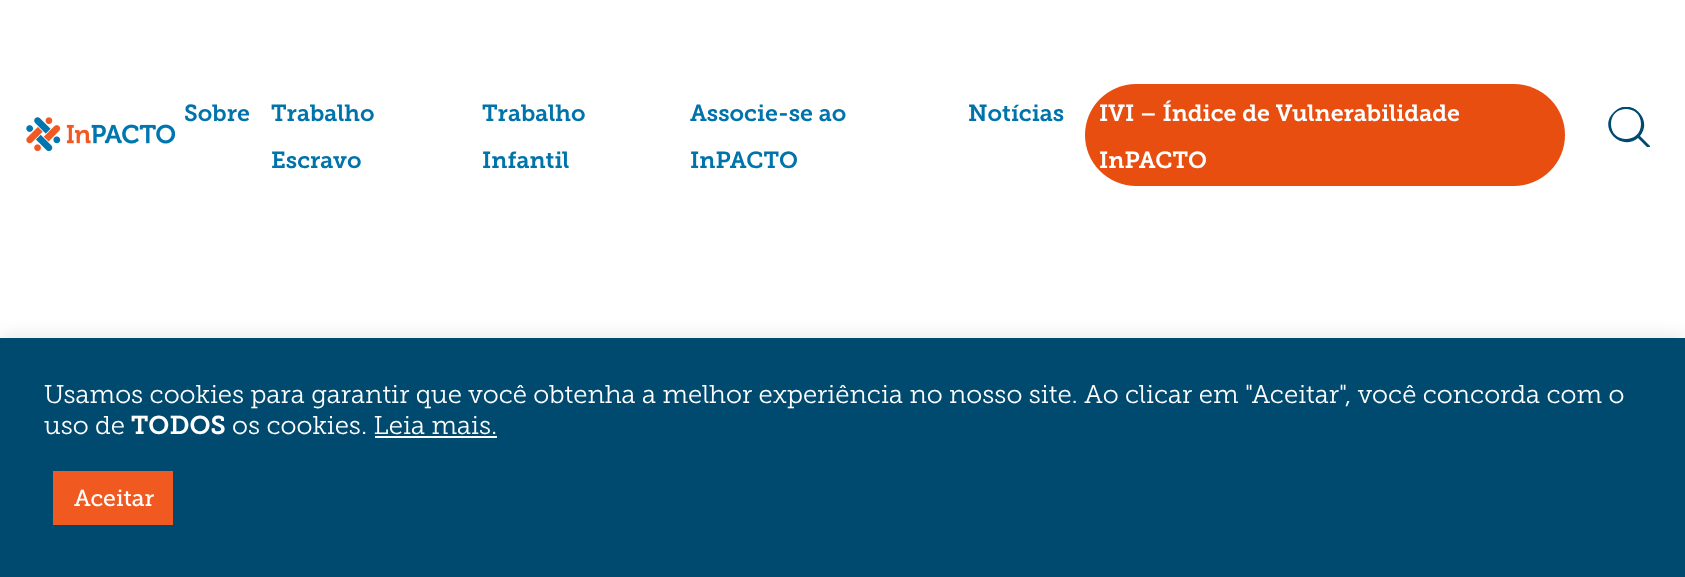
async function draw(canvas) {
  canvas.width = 1685
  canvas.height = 577
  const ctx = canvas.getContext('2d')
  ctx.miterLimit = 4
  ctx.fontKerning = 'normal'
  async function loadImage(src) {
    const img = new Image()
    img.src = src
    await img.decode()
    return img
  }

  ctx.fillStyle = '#fff'
  ctx.fillRect(0, 0, 1685, 577)
  ctx.drawImage(await loadImage('image0.png'), 26, 117, 149, 35)
  ctx.font = '23.1px Museo Slab'
  ctx.fillStyle = '#0073aa'
  ctx.fillText('Sobre', 184, 121)
  ctx.fillText('Trabalho', 271, 121)
  ctx.fillText('Escravo', 271, 168)
  ctx.fillText('Trabalho', 482, 121)
  ctx.fillText('Infantil', 482, 168)
  ctx.fillText('Associe-se ao', 690, 121)
  ctx.fillText('InPACTO', 690, 168)
  ctx.fillText('Notícias', 968, 121)
  ctx.fillStyle = '#e84e0f'
  ctx.beginPath()
  ctx.roundRect(1085, 84, 480, 102, 51)
  ctx.fill()
  ctx.fillStyle = '#fff'
  ctx.fillText('IVI – Índice de Vulnerabilidade', 1099, 121)
  ctx.fillText('InPACTO', 1099, 168)
  ctx.save()
  ctx.beginPath()
  ctx.rect(1608, 107, 42, 40)
  ctx.clip()
  ctx.fillStyle = '#004a6f'
  ctx.beginPath()
  ctx.moveTo(1650, 146)
  ctx.lineTo(1640, 136)
  ctx.bezierCurveTo(1654, 119, 1630, 96, 1614, 112)
  ctx.bezierCurveTo(1597, 128, 1621, 152, 1638, 138)
  ctx.lineTo(1648, 148)
  ctx.bezierCurveTo(1649, 149, 1651, 147, 1650, 146)
  ctx.closePath()
  ctx.moveTo(1611, 124)
  ctx.bezierCurveTo(1611, 104, 1641, 104, 1641, 124)
  ctx.bezierCurveTo(1641, 144, 1611, 144, 1611, 124)
  ctx.closePath()
  ctx.fill()
  ctx.restore()
  ctx.fillStyle = '#acabab4d'
  ctx.filter = 'blur(9px)'
  ctx.beginPath()
  ctx.rect(0, 336, 1685, 240)
  ctx.fill()
  ctx.filter = 'none'
  ctx.fillStyle = '#004a6f'
  ctx.fillRect(0, 338, 1685, 239)
  ctx.font = '25.67px "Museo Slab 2"'
  ctx.fillStyle = '#fff'
  ctx.fillText('Usamos cookies para garantir que você obtenha a melhor experiência no nosso site. Ao clicar em "Aceitar", você concorda com o', 44, 403)
  ctx.fillText('uso de', 44, 434)
  ctx.font = '25.67px Museo Slab'
  ctx.fillText('TODOS', 131, 434)
  ctx.font = '25.67px "Museo Slab 2"'
  ctx.fillText('os cookies. Leia mais.', 232, 434)
  ctx.fillRect(375, 436, 122, 2)
  ctx.fillStyle = '#f05a21'
  ctx.fillRect(53, 471, 120, 54)
  ctx.font = '23px "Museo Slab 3"'
  ctx.fillStyle = '#fff'
  ctx.fillText('Aceitar', 74, 506)
}

draw(document.querySelector('canvas'))
